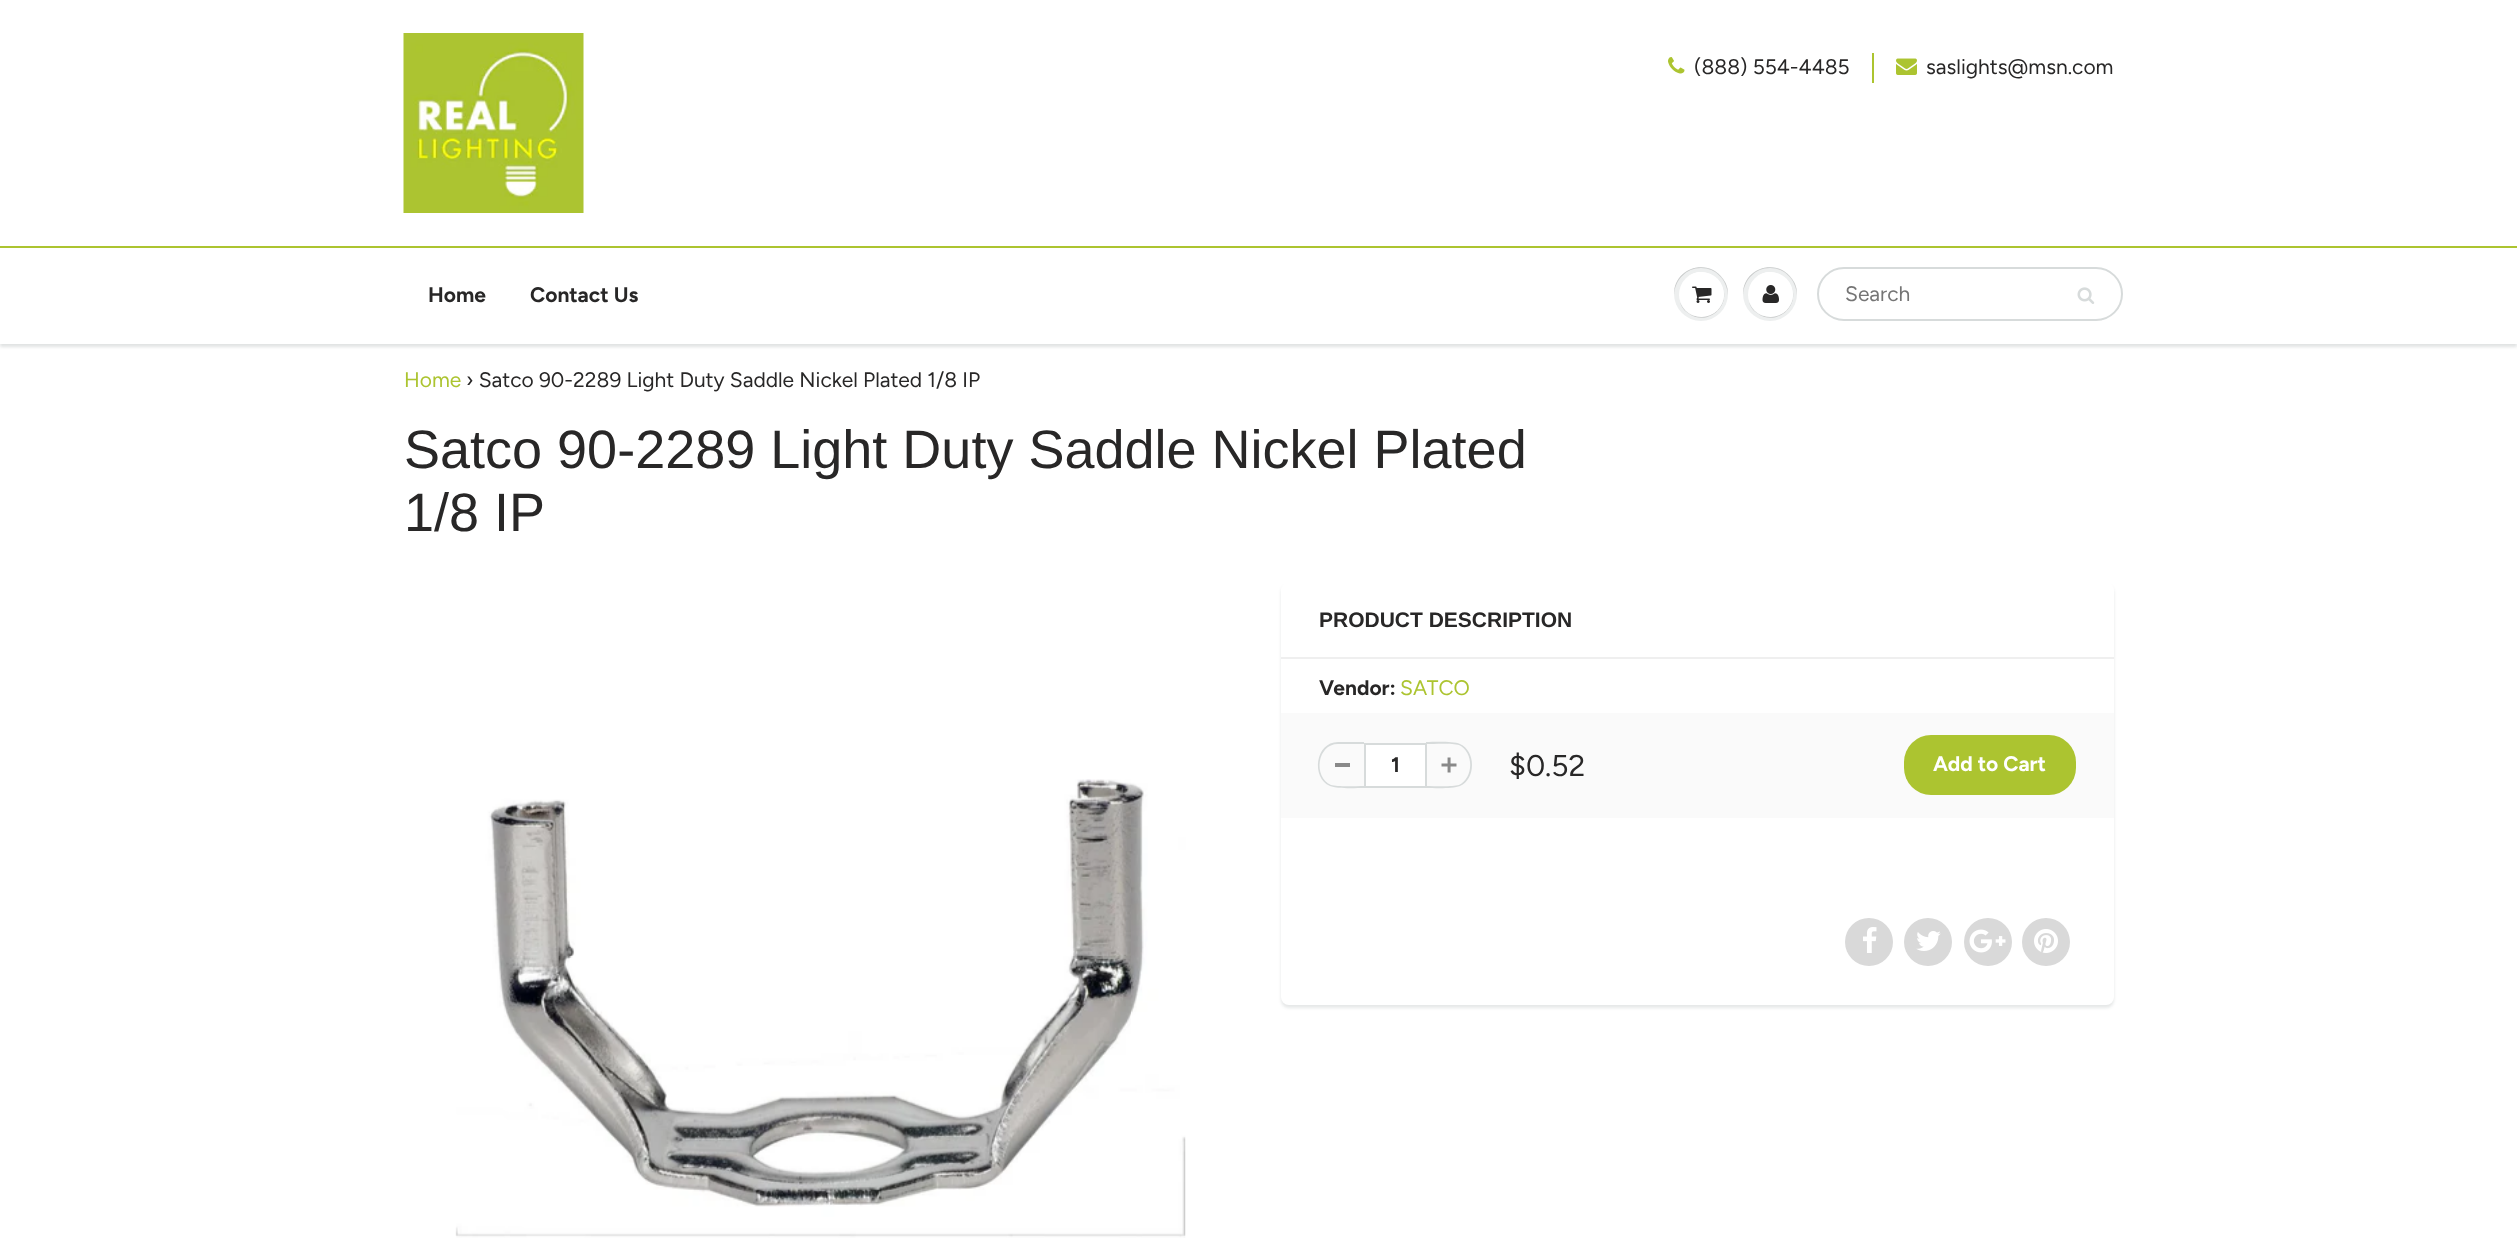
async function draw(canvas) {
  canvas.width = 2517
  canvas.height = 1255
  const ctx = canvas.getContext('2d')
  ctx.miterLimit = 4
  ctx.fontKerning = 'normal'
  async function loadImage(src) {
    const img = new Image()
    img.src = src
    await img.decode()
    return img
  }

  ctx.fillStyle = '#fff'
  ctx.fillRect(0, 0, 2517, 1255)
  ctx.drawImage(await loadImage('image0.png'), 403, 33, 181, 180)
  ctx.drawImage(await loadImage('image1.png'), 1668, 57, 17, 17)
  ctx.font = '21px Figtree'
  ctx.fillStyle = '#282727'
  ctx.fillText('(888) 554-4485', 1694, 74)
  ctx.fillStyle = '#acc430'
  ctx.fillRect(1872, 53, 2, 30)
  ctx.drawImage(await loadImage('image2.png'), 1896, 58, 21, 17)
  ctx.fillStyle = '#282727'
  ctx.fillText('saslights@msn.com', 1926, 74)
  ctx.fillStyle = '#0b191c1f'
  ctx.filter = 'blur(1.5px)'
  ctx.beginPath()
  ctx.rect(0, 249, 2517, 98)
  ctx.fill()
  ctx.filter = 'none'
  ctx.fillStyle = '#fff'
  ctx.fillRect(0, 248, 2517, 96)
  ctx.fillStyle = '#acc430'
  ctx.fillRect(0, 246, 2517, 2)
  ctx.font = 'bold 21px Figtree'
  ctx.fillStyle = '#282727'
  ctx.fillText('Home', 428, 302)
  ctx.fillText('Contact Us', 530, 302)
  ctx.fillStyle = '#edefef'
  ctx.beginPath()
  ctx.arc(1701, 294, 27, 0, 2 * Math.PI)
  ctx.fill()
  ctx.fillStyle = '#c9cbcb'
  ctx.beginPath()
  ctx.moveTo(1701, 268)
  ctx.bezierCurveTo(1716, 268, 1727, 280, 1728, 295)
  ctx.bezierCurveTo(1728, 289, 1727, 284, 1723, 279)
  ctx.bezierCurveTo(1708, 257, 1673, 268, 1674, 295)
  ctx.bezierCurveTo(1675, 280, 1686, 268, 1701, 268)
  ctx.closePath()
  ctx.fill()
  ctx.beginPath()
  ctx.moveTo(1680, 302)
  ctx.bezierCurveTo(1681, 306, 1684, 311, 1688, 313)
  ctx.bezierCurveTo(1706, 327, 1730, 308, 1723, 288)
  ctx.bezierCurveTo(1731, 315, 1690, 329, 1680, 302)
  ctx.closePath()
  ctx.fill()
  ctx.fillStyle = '#fff'
  ctx.beginPath()
  ctx.arc(1701.5, 294.5, 22.5, 0, 2 * Math.PI)
  ctx.fill()
  ctx.beginPath()
  ctx.moveTo(1701, 273)
  ctx.bezierCurveTo(1719, 273, 1726, 290, 1722, 303)
  ctx.bezierCurveTo(1731, 281, 1703, 262, 1686, 278)
  ctx.bezierCurveTo(1690, 275, 1695, 273, 1701, 273)
  ctx.closePath()
  ctx.fill()
  ctx.drawImage(await loadImage('image3.png'), 1692, 286, 20, 17)
  ctx.fillStyle = '#edefef'
  ctx.beginPath()
  ctx.arc(1770, 294, 27, 0, 2 * Math.PI)
  ctx.fill()
  ctx.fillStyle = '#c9cbcb'
  ctx.beginPath()
  ctx.moveTo(1770, 268)
  ctx.bezierCurveTo(1785, 268, 1796, 280, 1797, 295)
  ctx.bezierCurveTo(1797, 289, 1796, 284, 1792, 279)
  ctx.bezierCurveTo(1777, 257, 1742, 268, 1743, 295)
  ctx.bezierCurveTo(1744, 280, 1755, 268, 1770, 268)
  ctx.closePath()
  ctx.fill()
  ctx.beginPath()
  ctx.moveTo(1749, 302)
  ctx.bezierCurveTo(1750, 306, 1753, 311, 1757, 313)
  ctx.bezierCurveTo(1775, 327, 1799, 308, 1792, 288)
  ctx.bezierCurveTo(1800, 315, 1759, 329, 1749, 302)
  ctx.closePath()
  ctx.fill()
  ctx.fillStyle = '#fff'
  ctx.beginPath()
  ctx.arc(1770.5, 294.5, 22.5, 0, 2 * Math.PI)
  ctx.fill()
  ctx.beginPath()
  ctx.moveTo(1770, 273)
  ctx.bezierCurveTo(1788, 273, 1795, 290, 1791, 303)
  ctx.bezierCurveTo(1800, 281, 1772, 262, 1755, 278)
  ctx.bezierCurveTo(1759, 275, 1764, 273, 1770, 273)
  ctx.closePath()
  ctx.fill()
  ctx.drawImage(await loadImage('image4.png'), 1762, 285, 17, 18)
  ctx.beginPath()
  ctx.roundRect(1818, 268, 304, 52, 26)
  ctx.strokeStyle = '#d7dbdb'
  ctx.lineWidth = 2
  ctx.stroke()
  ctx.font = '21px Figtree'
  ctx.fillStyle = '#757575'
  ctx.fillText('Search', 1845, 301)
  ctx.drawImage(await loadImage('image5.png'), 2077, 287, 18, 17)
  ctx.fillStyle = '#acc430'
  ctx.fillText('Home', 404, 387)
  ctx.fillStyle = '#282727'
  ctx.fillText('› Satco 90-2289 Light Duty Saddle Nickel Plated 1/8 IP', 466, 387)
  ctx.font = '54px Arimo'
  ctx.fillText('Satco 90-2289 Light Duty Saddle Nickel Plated', 404, 468)
  ctx.fillText('1/8 IP', 404, 531)
  ctx.fillStyle = '#0b191c1a'
  ctx.filter = 'blur(1.5px)'
  ctx.beginPath()
  ctx.roundRect(1281, 585, 833, 423, 8)
  ctx.fill()
  ctx.filter = 'none'
  ctx.fillStyle = '#fff'
  ctx.beginPath()
  ctx.roundRect(1281, 582, 833, 423, 8)
  ctx.fill()
  ctx.fillStyle = '#efefef'
  ctx.fillRect(1281, 657, 833, 2)
  ctx.font = 'bold 21px Arimo'
  ctx.fillStyle = '#282727'
  ctx.fillText('PRODUCT DESCRIPTION', 1319, 627)
  ctx.font = 'bold 21px Figtree'
  ctx.fillText('Vendor:', 1319, 695)
  ctx.font = '21px Figtree'
  ctx.fillStyle = '#acc430'
  ctx.fillText('SATCO', 1400, 695)
  ctx.fillStyle = '#fafafa'
  ctx.fillRect(1281, 713, 833, 105)
  ctx.fillStyle = '#898989'
  ctx.fillRect(1335, 763, 15, 4)
  ctx.fillStyle = '#d7dbdb'
  ctx.beginPath()
  ctx.moveTo(1338, 742)
  ctx.lineTo(1364, 742)
  ctx.lineTo(1364, 788)
  ctx.bezierCurveTo(1355, 788, 1337, 789, 1330, 786)
  ctx.bezierCurveTo(1311, 778, 1315, 742, 1338, 742)
  ctx.closePath()
  ctx.moveTo(1338, 744)
  ctx.lineTo(1364, 744)
  ctx.lineTo(1364, 786)
  ctx.bezierCurveTo(1356, 786, 1338, 787, 1331, 785)
  ctx.bezierCurveTo(1313, 777, 1317, 744, 1338, 744)
  ctx.closePath()
  ctx.fill('evenodd')
  ctx.fillStyle = '#fff'
  ctx.beginPath()
  ctx.rect(1365, 744, 61, 43)
  ctx.fill()
  ctx.stroke()
  ctx.font = 'bold 21px Figtree'
  ctx.fillStyle = '#282727'
  ctx.fillText('1', 1391, 772)
  ctx.drawImage(await loadImage('image6.png'), 1441, 757, 16, 16)
  ctx.fillStyle = '#d7dbdb'
  ctx.beginPath()
  ctx.moveTo(1426, 742)
  ctx.bezierCurveTo(1435, 742, 1453, 741, 1460, 744)
  ctx.bezierCurveTo(1476, 751, 1476, 779, 1460, 786)
  ctx.bezierCurveTo(1453, 789, 1435, 788, 1426, 788)
  ctx.closePath()
  ctx.moveTo(1426, 744)
  ctx.bezierCurveTo(1434, 744, 1452, 743, 1459, 745)
  ctx.bezierCurveTo(1474, 752, 1474, 778, 1459, 785)
  ctx.bezierCurveTo(1452, 787, 1434, 786, 1426, 786)
  ctx.closePath()
  ctx.fill('evenodd')
  ctx.font = '30px Figtree'
  ctx.fillStyle = '#282727'
  ctx.fillText('$0.52', 1509, 776)
  ctx.fillStyle = '#acc430'
  ctx.beginPath()
  ctx.roundRect(1904, 735, 172, 60, 27)
  ctx.fill()
  ctx.font = 'bold 21px Figtree'
  ctx.fillStyle = '#fff'
  ctx.fillText('Add to Cart', 1933, 771)
  ctx.fillStyle = '#d9d9d9'
  ctx.beginPath()
  ctx.arc(1869, 942, 24, 0, 2 * Math.PI)
  ctx.fill()
  ctx.drawImage(await loadImage('image7.png'), 1863, 927, 14, 26)
  ctx.beginPath()
  ctx.arc(1928, 942, 24, 0, 2 * Math.PI)
  ctx.fill()
  ctx.drawImage(await loadImage('image8.png'), 1916, 931, 25, 20)
  ctx.beginPath()
  ctx.arc(1988, 942, 24, 0, 2 * Math.PI)
  ctx.fill()
  ctx.drawImage(await loadImage('image9.png'), 1969, 929, 37, 24)
  ctx.beginPath()
  ctx.arc(2046, 942, 24, 0, 2 * Math.PI)
  ctx.fill()
  ctx.drawImage(await loadImage('image10.png'), 2034, 929, 24, 24)
  ctx.drawImage(await loadImage('image11.png'), 455, 779, 731, 459)
}

draw(document.querySelector('canvas'))
